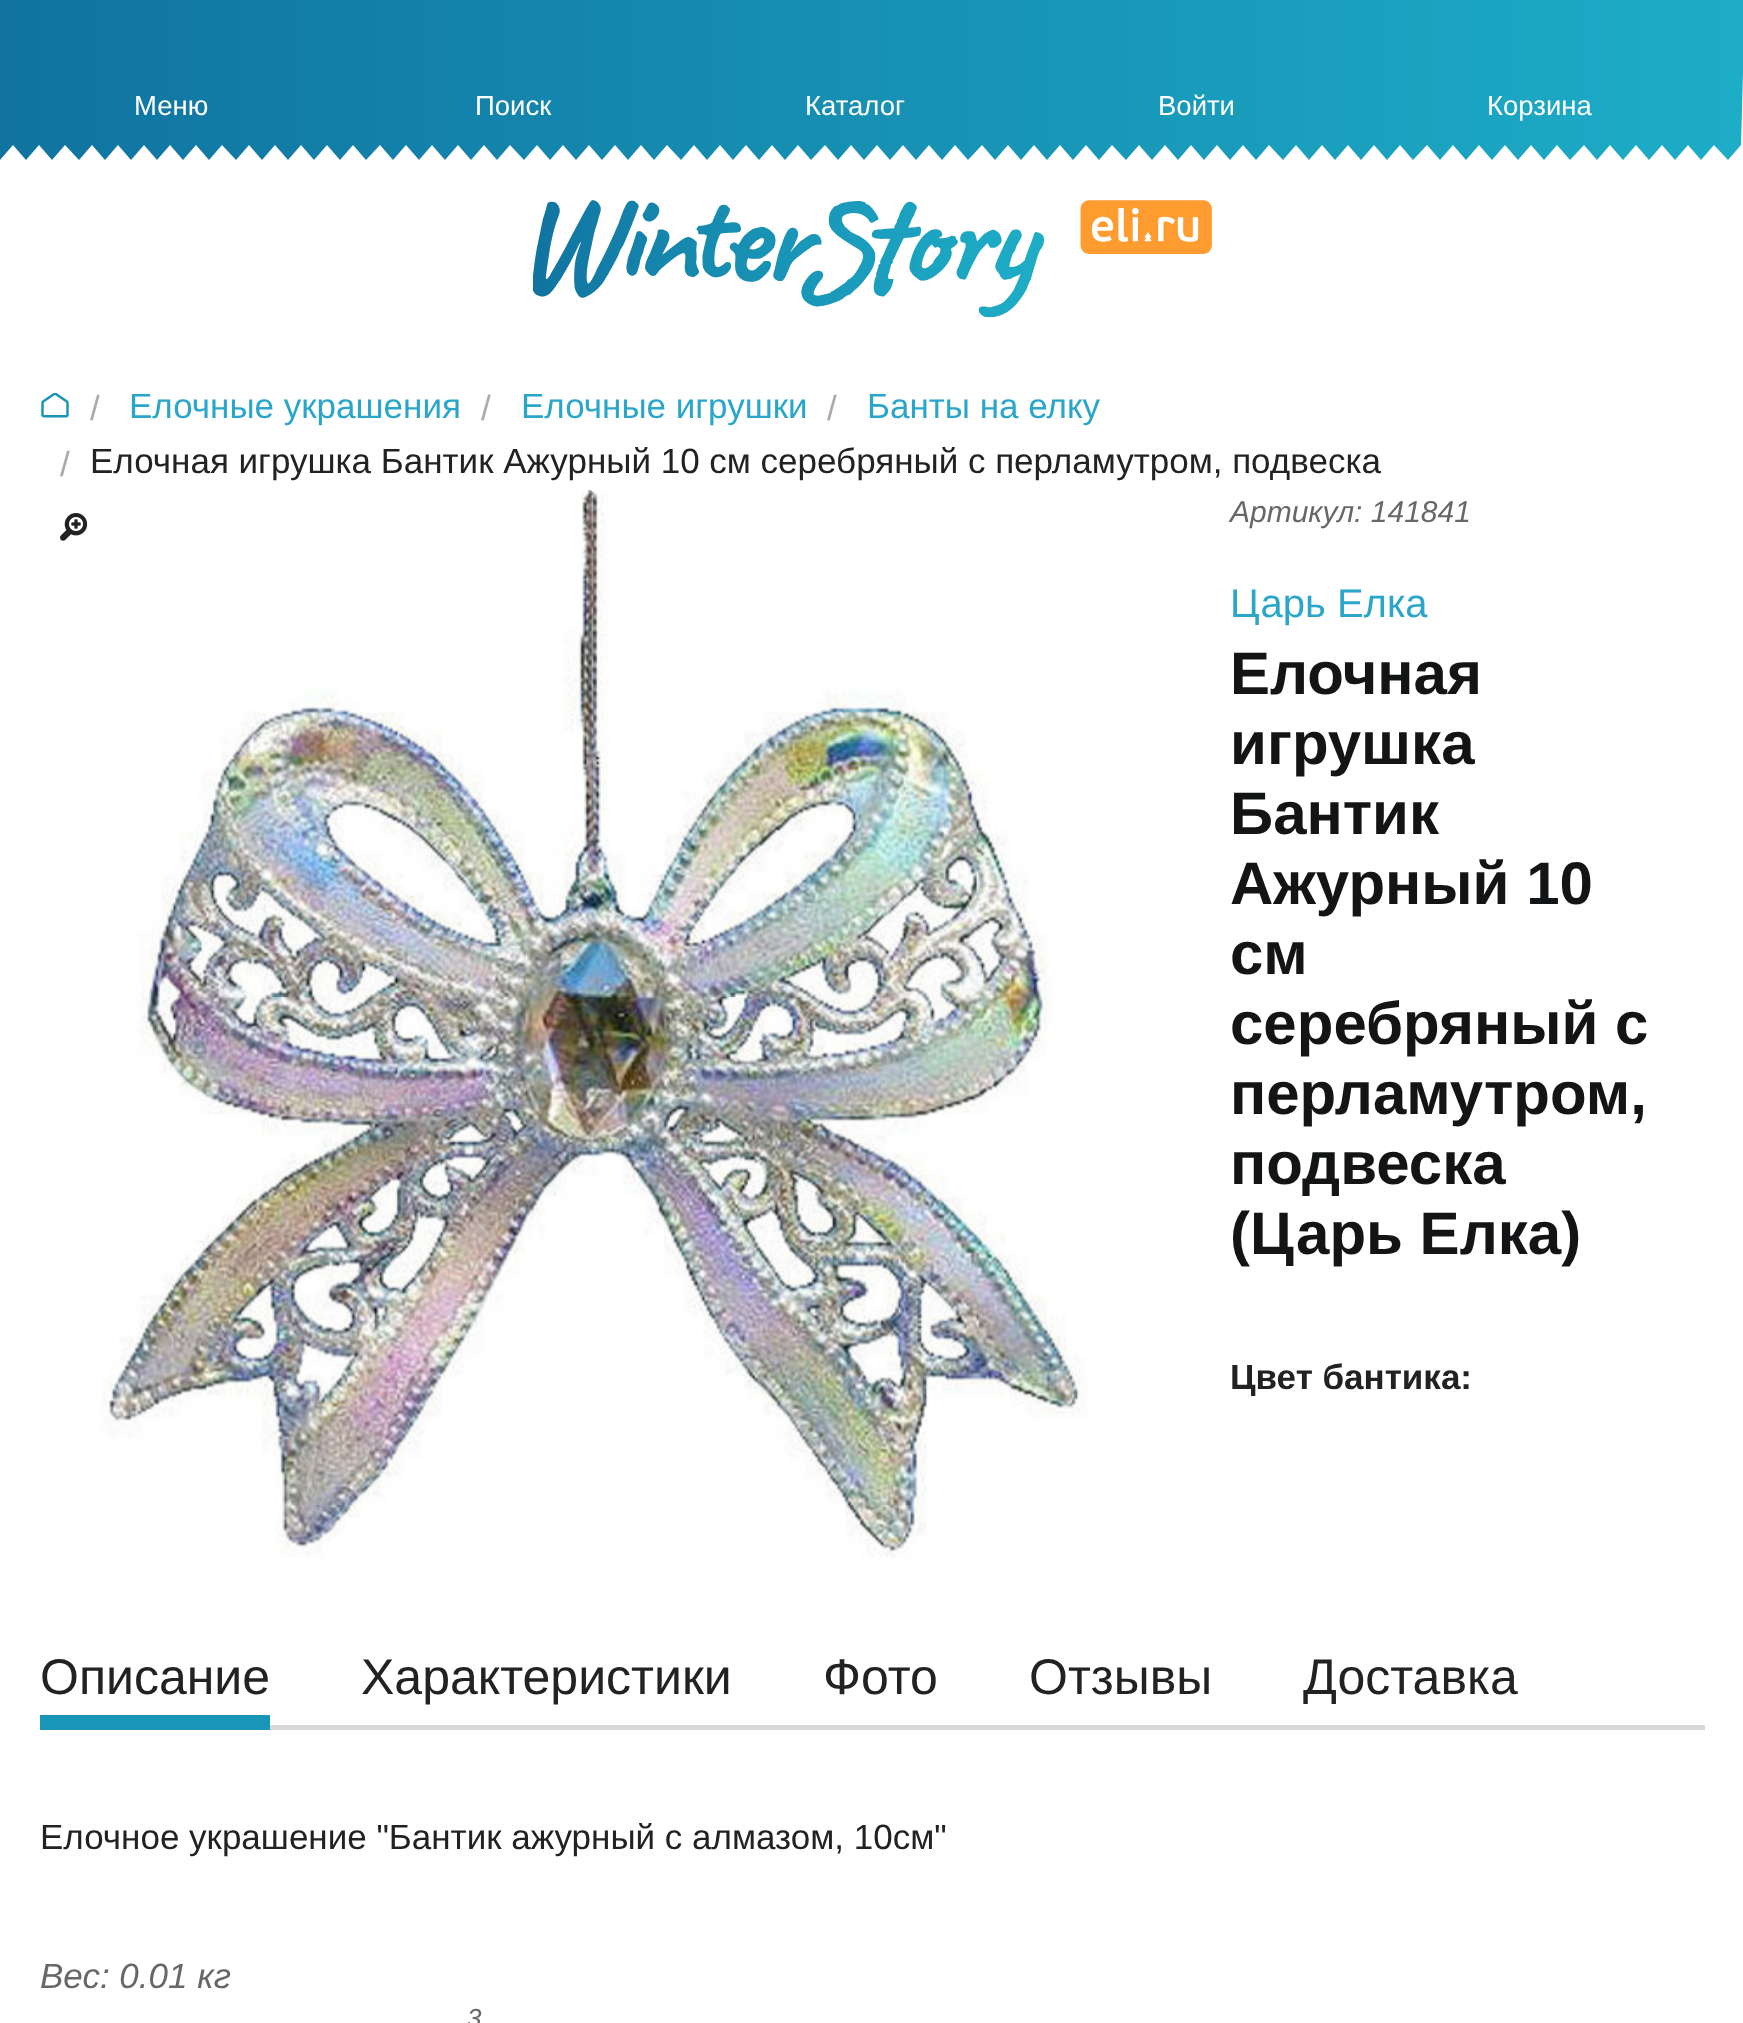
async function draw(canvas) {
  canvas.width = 1743
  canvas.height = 2023
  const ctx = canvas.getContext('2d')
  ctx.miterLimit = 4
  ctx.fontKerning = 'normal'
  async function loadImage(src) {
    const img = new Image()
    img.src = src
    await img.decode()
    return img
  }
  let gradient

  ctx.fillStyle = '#fff'
  ctx.fillRect(0, 0, 1743, 2023)
  gradient = ctx.createLinearGradient(0, 80, 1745, 80)
  gradient.addColorStop(0, '#1073a0')
  gradient.addColorStop(1, '#1dadc7')
  ctx.fillStyle = gradient
  ctx.beginPath()
  ctx.moveTo(0, 0)
  ctx.lineTo(0, 160)
  ctx.lineTo(13, 145)
  ctx.lineTo(26, 160)
  ctx.lineTo(39, 145)
  ctx.lineTo(52, 160)
  ctx.lineTo(65, 145)
  ctx.lineTo(79, 160)
  ctx.lineTo(92, 145)
  ctx.lineTo(105, 160)
  ctx.lineTo(118, 145)
  ctx.lineTo(131, 160)
  ctx.lineTo(144, 145)
  ctx.lineTo(157, 160)
  ctx.lineTo(170, 145)
  ctx.lineTo(183, 160)
  ctx.lineTo(196, 145)
  ctx.lineTo(209, 160)
  ctx.lineTo(222, 145)
  ctx.lineTo(236, 160)
  ctx.lineTo(249, 145)
  ctx.lineTo(262, 160)
  ctx.lineTo(275, 145)
  ctx.lineTo(288, 160)
  ctx.lineTo(301, 145)
  ctx.lineTo(314, 160)
  ctx.lineTo(327, 145)
  ctx.lineTo(340, 160)
  ctx.lineTo(353, 145)
  ctx.lineTo(366, 160)
  ctx.lineTo(380, 145)
  ctx.lineTo(393, 160)
  ctx.lineTo(406, 145)
  ctx.lineTo(419, 160)
  ctx.lineTo(432, 145)
  ctx.lineTo(445, 160)
  ctx.lineTo(458, 145)
  ctx.lineTo(471, 160)
  ctx.lineTo(484, 145)
  ctx.lineTo(497, 160)
  ctx.lineTo(510, 145)
  ctx.lineTo(524, 160)
  ctx.lineTo(537, 145)
  ctx.lineTo(550, 160)
  ctx.lineTo(563, 145)
  ctx.lineTo(576, 160)
  ctx.lineTo(589, 145)
  ctx.lineTo(602, 160)
  ctx.lineTo(615, 145)
  ctx.lineTo(628, 160)
  ctx.lineTo(641, 145)
  ctx.lineTo(654, 160)
  ctx.lineTo(667, 145)
  ctx.lineTo(681, 160)
  ctx.lineTo(694, 145)
  ctx.lineTo(707, 160)
  ctx.lineTo(720, 145)
  ctx.lineTo(733, 160)
  ctx.lineTo(746, 145)
  ctx.lineTo(759, 160)
  ctx.lineTo(772, 145)
  ctx.lineTo(785, 160)
  ctx.lineTo(798, 145)
  ctx.lineTo(811, 160)
  ctx.lineTo(825, 145)
  ctx.lineTo(838, 160)
  ctx.lineTo(851, 145)
  ctx.lineTo(864, 160)
  ctx.lineTo(877, 145)
  ctx.lineTo(890, 160)
  ctx.lineTo(903, 145)
  ctx.lineTo(916, 160)
  ctx.lineTo(929, 145)
  ctx.lineTo(942, 160)
  ctx.lineTo(955, 145)
  ctx.lineTo(968, 160)
  ctx.lineTo(982, 145)
  ctx.lineTo(995, 160)
  ctx.lineTo(1008, 145)
  ctx.lineTo(1021, 160)
  ctx.lineTo(1034, 145)
  ctx.lineTo(1047, 160)
  ctx.lineTo(1060, 145)
  ctx.lineTo(1073, 160)
  ctx.lineTo(1086, 145)
  ctx.lineTo(1099, 160)
  ctx.lineTo(1112, 145)
  ctx.lineTo(1126, 160)
  ctx.lineTo(1139, 145)
  ctx.lineTo(1152, 160)
  ctx.lineTo(1165, 145)
  ctx.lineTo(1178, 160)
  ctx.lineTo(1191, 145)
  ctx.lineTo(1204, 160)
  ctx.lineTo(1217, 145)
  ctx.lineTo(1230, 160)
  ctx.lineTo(1243, 145)
  ctx.lineTo(1256, 160)
  ctx.lineTo(1269, 145)
  ctx.lineTo(1283, 160)
  ctx.lineTo(1296, 145)
  ctx.lineTo(1309, 160)
  ctx.lineTo(1322, 145)
  ctx.lineTo(1335, 160)
  ctx.lineTo(1348, 145)
  ctx.lineTo(1361, 160)
  ctx.lineTo(1374, 145)
  ctx.lineTo(1387, 160)
  ctx.lineTo(1400, 145)
  ctx.lineTo(1413, 160)
  ctx.lineTo(1427, 145)
  ctx.lineTo(1440, 160)
  ctx.lineTo(1453, 145)
  ctx.lineTo(1466, 160)
  ctx.lineTo(1479, 145)
  ctx.lineTo(1492, 160)
  ctx.lineTo(1505, 145)
  ctx.lineTo(1518, 160)
  ctx.lineTo(1531, 145)
  ctx.lineTo(1544, 160)
  ctx.lineTo(1557, 145)
  ctx.lineTo(1570, 160)
  ctx.lineTo(1584, 145)
  ctx.lineTo(1597, 160)
  ctx.lineTo(1610, 145)
  ctx.lineTo(1623, 160)
  ctx.lineTo(1636, 145)
  ctx.lineTo(1649, 160)
  ctx.lineTo(1662, 145)
  ctx.lineTo(1675, 160)
  ctx.lineTo(1688, 145)
  ctx.lineTo(1701, 160)
  ctx.lineTo(1714, 145)
  ctx.lineTo(1728, 160)
  ctx.lineTo(1741, 145)
  ctx.lineTo(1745, 0)
  ctx.closePath()
  ctx.fill()
  ctx.font = '27.5px Liberation Sans'
  ctx.fillStyle = '#fff'
  ctx.fillText('Меню', 134, 115)
  ctx.fillText('Поиск', 475, 115)
  ctx.fillText('Каталог', 805, 115)
  ctx.fillText('Войти', 1158, 115)
  ctx.fillText('Корзина', 1487, 115)
  ctx.drawImage(await loadImage('image0.png'), 533, 200, 679, 118)
  ctx.drawImage(await loadImage('image1.png'), 41, 393, 28, 25)
  ctx.font = '35px Liberation Sans'
  ctx.fillStyle = '#aaa'
  ctx.fillText('/', 90, 420)
  ctx.fillStyle = '#2ba6cb'
  ctx.fillText('Елочные украшения', 129, 418)
  ctx.fillStyle = '#aaa'
  ctx.fillText('/', 481, 420)
  ctx.fillStyle = '#2ba6cb'
  ctx.fillText('Елочные игрушки', 521, 418)
  ctx.fillStyle = '#aaa'
  ctx.fillText('/', 827, 420)
  ctx.fillStyle = '#2ba6cb'
  ctx.fillText('Банты на елку', 867, 418)
  ctx.fillStyle = '#aaa'
  ctx.fillText('/', 60, 476)
  ctx.fillStyle = '#222'
  ctx.fillText('Елочная игрушка Бантик Ажурный 10 см серебряный с перламутром, подвеска', 90, 473)
  ctx.drawImage(await loadImage('image2.png'), 60, 513, 28, 28)
  ctx.drawImage(await loadImage('image3.png'), 100, 490, 988, 1068)
  ctx.font = 'italic 30px Liberation Sans'
  ctx.fillStyle = '#676767'
  ctx.fillText('Артикул: 141841', 1230, 522)
  ctx.font = '40px Liberation Sans'
  ctx.fillStyle = '#2ba6cb'
  ctx.fillText('Царь Елка', 1230, 617)
  ctx.font = 'bold 60px Liberation Sans'
  ctx.fillStyle = '#131415'
  ctx.fillText('Елочная', 1230, 694)
  ctx.fillText('игрушка', 1230, 764)
  ctx.fillText('Бантик', 1230, 834)
  ctx.fillText('Ажурный 10', 1230, 904)
  ctx.fillText('см', 1230, 974)
  ctx.fillText('серебряный с', 1230, 1044)
  ctx.fillText('перламутром,', 1230, 1114)
  ctx.fillText('подвеска', 1230, 1184)
  ctx.fillText('(Царь Елка)', 1230, 1254)
  ctx.font = 'bold 35px Liberation Sans'
  ctx.fillStyle = '#222'
  ctx.fillText('Цвет бантика:', 1230, 1389)
  ctx.fillStyle = '#d9d9d9'
  ctx.fillRect(270, 1725, 1435, 5)
  ctx.fillStyle = '#1895b7'
  ctx.fillRect(40, 1715, 230, 15)
  ctx.font = '50px Liberation Sans'
  ctx.fillStyle = '#222'
  ctx.fillText('Описание', 40, 1694)
  ctx.fillText('Характеристики', 361, 1694)
  ctx.fillText('Фото', 823, 1694)
  ctx.fillText('Отзывы', 1029, 1694)
  ctx.fillText('Доставка', 1303, 1694)
  ctx.font = '35px Liberation Sans'
  ctx.fillText('Елочное украшение "Бантик ажурный с алмазом, 10см"', 40, 1849)
  ctx.font = 'italic 35px Liberation Sans'
  ctx.fillStyle = '#676767'
  ctx.fillText('Вес: 0.01 кг', 40, 1988)
  ctx.font = 'italic 26px Liberation Sans'
  ctx.fillText('3', 467, 2027)
}

draw(document.querySelector('canvas'))
